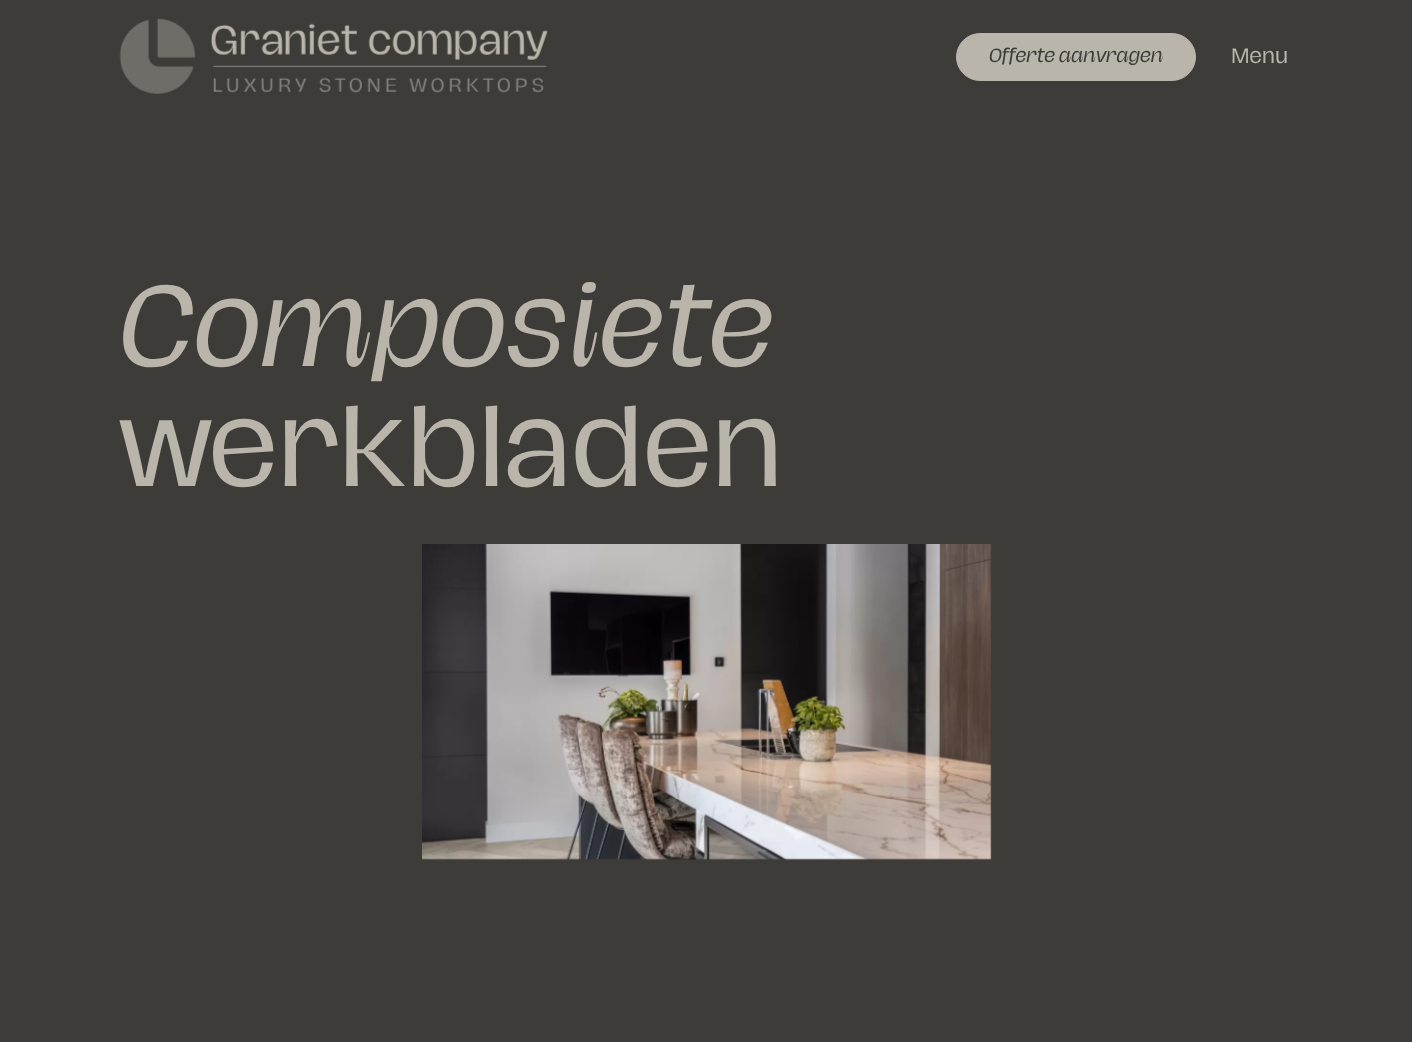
async function draw(canvas) {
  canvas.width = 1412
  canvas.height = 1042
  const ctx = canvas.getContext('2d')
  ctx.miterLimit = 4
  ctx.fontKerning = 'normal'
  async function loadImage(src) {
    const img = new Image()
    img.src = src
    await img.decode()
    return img
  }

  ctx.fillStyle = '#3d3c39'
  ctx.fillRect(0, 0, 1412, 1042)
  ctx.drawImage(await loadImage('image0.png'), 119, 18, 429, 76)
  ctx.fillStyle = '#bab5ab'
  ctx.beginPath()
  ctx.roundRect(956.5, 33.5, 239, 47, 23.5)
  ctx.fill()
  ctx.strokeStyle = '#bab5ab'
  ctx.stroke()
  ctx.font = 'italic 17.5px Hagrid'
  ctx.fillStyle = '#3d3c39'
  ctx.fillText('Offerte aanvragen', 989, 62)
  ctx.font = '19px Hagrid'
  ctx.fillStyle = '#bab5ab'
  ctx.fillText('Menu', 1231, 63)
  ctx.font = 'italic 105px Hagrid'
  ctx.fillText('Composiete', 119, 366)
  ctx.font = '105px Hagrid'
  ctx.fillText('werkbladen', 119, 486)
  ctx.drawImage(await loadImage('image1.png'), 422, 544, 570, 316)
}

draw(document.querySelector('canvas'))
